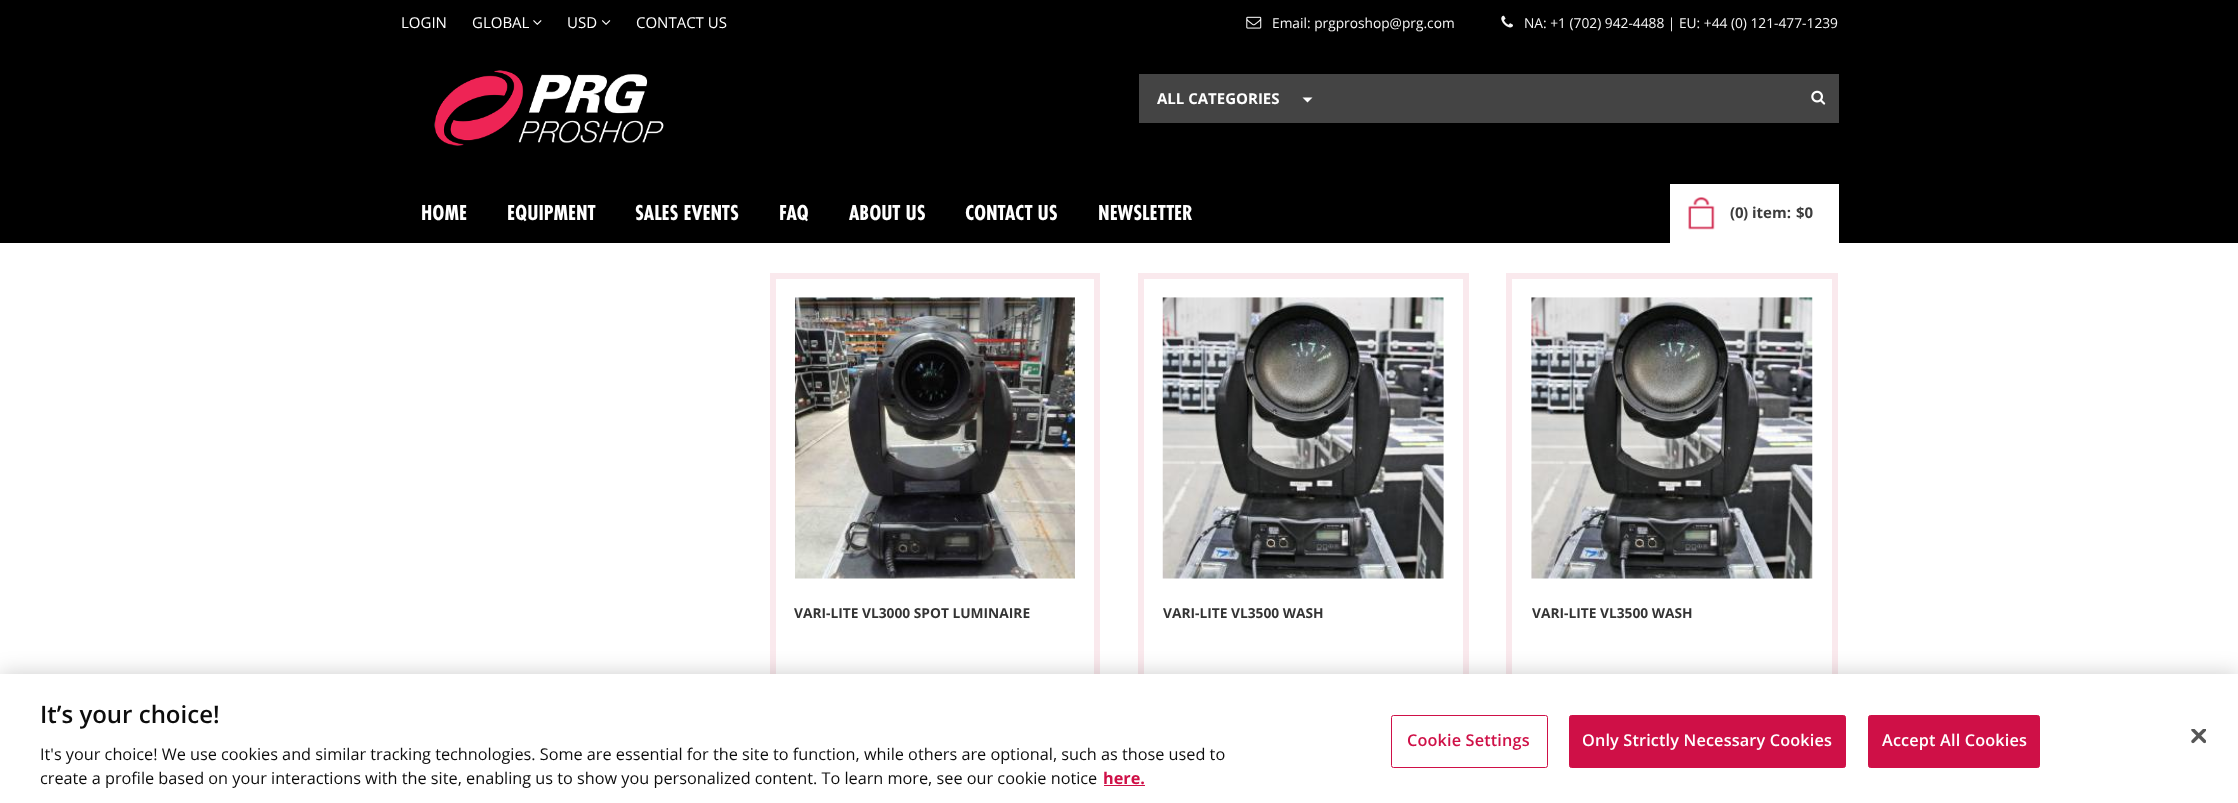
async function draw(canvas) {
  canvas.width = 2238
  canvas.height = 803
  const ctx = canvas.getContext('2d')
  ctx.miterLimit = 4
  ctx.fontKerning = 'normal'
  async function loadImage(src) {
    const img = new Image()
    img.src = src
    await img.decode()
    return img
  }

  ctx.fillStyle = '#fff'
  ctx.fillRect(0, 0, 2238, 803)
  ctx.fillStyle = '#000'
  ctx.fillRect(0, 0, 2238, 243)
  ctx.font = '15px Open Sans'
  ctx.fillStyle = '#fff'
  ctx.fillText('LOGIN', 401, 28)
  ctx.fillText('GLOBAL', 472, 28)
  ctx.drawImage(await loadImage('image0.png'), 533, 20, 9, 5)
  ctx.fillText('USD', 567, 28)
  ctx.drawImage(await loadImage('image1.png'), 601, 20, 10, 5)
  ctx.fillText('CONTACT US', 636, 28)
  ctx.drawImage(await loadImage('image2.png'), 1246, 16, 16, 13)
  ctx.font = '13.75px Open Sans'
  ctx.fillStyle = '#f5f5f5'
  ctx.fillText('Email: prgproshop@prg.com', 1272, 28)
  ctx.drawImage(await loadImage('image3.png'), 1501, 15, 12, 13)
  ctx.fillText('NA: +1 (702) 942-4488 | EU: +44 (0) 121-477-1239', 1524, 28)
  ctx.drawImage(await loadImage('image4.png'), 434, 70, 230, 76)
  ctx.fillStyle = '#444'
  ctx.fillRect(1139, 74, 700, 49)
  ctx.font = 'bold 15px Open Sans'
  ctx.fillStyle = '#fff'
  ctx.fillText('ALL CATEGORIES', 1157, 104)
  ctx.beginPath()
  ctx.moveTo(1302.5, 97.5)
  ctx.lineTo(1312.5, 97.5)
  ctx.lineTo(1307.5, 102.5)
  ctx.closePath()
  ctx.fill()
  ctx.drawImage(await loadImage('image5.png'), 1811, 90, 15, 15)
  ctx.font = 'bold 22.5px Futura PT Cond'
  ctx.fillText('HOME', 421, 220)
  ctx.fillText('EQUIPMENT', 507, 220)
  ctx.fillText('SALES EVENTS', 635, 220)
  ctx.fillText('FAQ', 779, 220)
  ctx.fillText('ABOUT US', 849, 220)
  ctx.fillText('CONTACT US', 965, 220)
  ctx.fillText('NEWSLETTER', 1098, 220)
  ctx.fillRect(1670, 184, 169, 59)
  ctx.drawImage(await loadImage('image6.png'), 1688, 197, 27, 33)
  ctx.font = 'bold 15px Open Sans'
  ctx.fillStyle = '#3d3d3d'
  ctx.fillText('(0', 1730, 218)
  ctx.fillText(') item:', 1743, 218)
  ctx.fillText('$0', 1796, 218)
  ctx.strokeStyle = '#fae9ed'
  ctx.lineWidth = 6
  ctx.strokeRect(773, 276, 324, 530)
  ctx.drawImage(await loadImage('image7.png'), 795, 297, 280, 282)
  ctx.font = 'bold 13.75px Open Sans'
  ctx.fillStyle = '#343434'
  ctx.fillText('VARI-LITE VL3000 SPOT LUMINAIRE', 794, 618)
  ctx.strokeRect(1141, 276, 325, 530)
  ctx.drawImage(await loadImage('image8.png'), 1162, 297, 282, 282)
  ctx.fillText('VARI-LITE VL3500 WASH', 1163, 618)
  ctx.strokeRect(1509, 276, 326, 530)
  ctx.drawImage(await loadImage('image9.png'), 1531, 297, 282, 282)
  ctx.fillText('VARI-LITE VL3500 WASH', 1532, 618)
  ctx.fillStyle = '#00000033'
  ctx.filter = 'blur(11px)'
  ctx.beginPath()
  ctx.rect(0, 674, 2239, 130)
  ctx.fill()
  ctx.filter = 'none'
  ctx.fillStyle = '#fff'
  ctx.fillRect(0, 674, 2238, 129)
  ctx.font = '600 24px Open Sans'
  ctx.fillStyle = '#0d0d0d'
  ctx.fillText('It’s your choice!', 40, 723)
  ctx.font = '16.25px Open Sans'
  ctx.fillText('It\'s your choice! We use cookies and similar tracking technologies. Some are essential for the site to function, while others are optional, such as those used to', 40, 760)
  ctx.fillText('create a profile based on your interactions with the site, enabling us to show you personalized content. To learn more, see our cookie notice', 40, 784)
  ctx.font = 'bold 16.25px Open Sans'
  ctx.fillStyle = '#cf1047'
  ctx.fillText('here.', 1103, 784)
  ctx.fillRect(1104, 785, 41, 1)
  ctx.beginPath()
  ctx.roundRect(1391.5, 715.5, 156, 52, 2)
  ctx.strokeStyle = '#cf1047'
  ctx.lineWidth = 1
  ctx.stroke()
  ctx.letterSpacing = '0.15px'
  ctx.font = '600 16.25px Open Sans'
  ctx.fillText('Cookie Settings', 1407, 746)
  ctx.beginPath()
  ctx.roundRect(1569.5, 715.5, 276, 52, 2)
  ctx.fill()
  ctx.stroke()
  ctx.fillStyle = '#fff'
  ctx.fillText('Only Strictly Necessary Cookies', 1582, 746)
  ctx.fillStyle = '#cf1047'
  ctx.beginPath()
  ctx.roundRect(1868.5, 715.5, 171, 52, 2)
  ctx.fill()
  ctx.stroke()
  ctx.fillStyle = '#fff'
  ctx.fillText('Accept All Cookies', 1882, 746)
  ctx.drawImage(await loadImage('image10.png'), 2191, 729, 15, 15)
}

draw(document.querySelector('canvas'))
